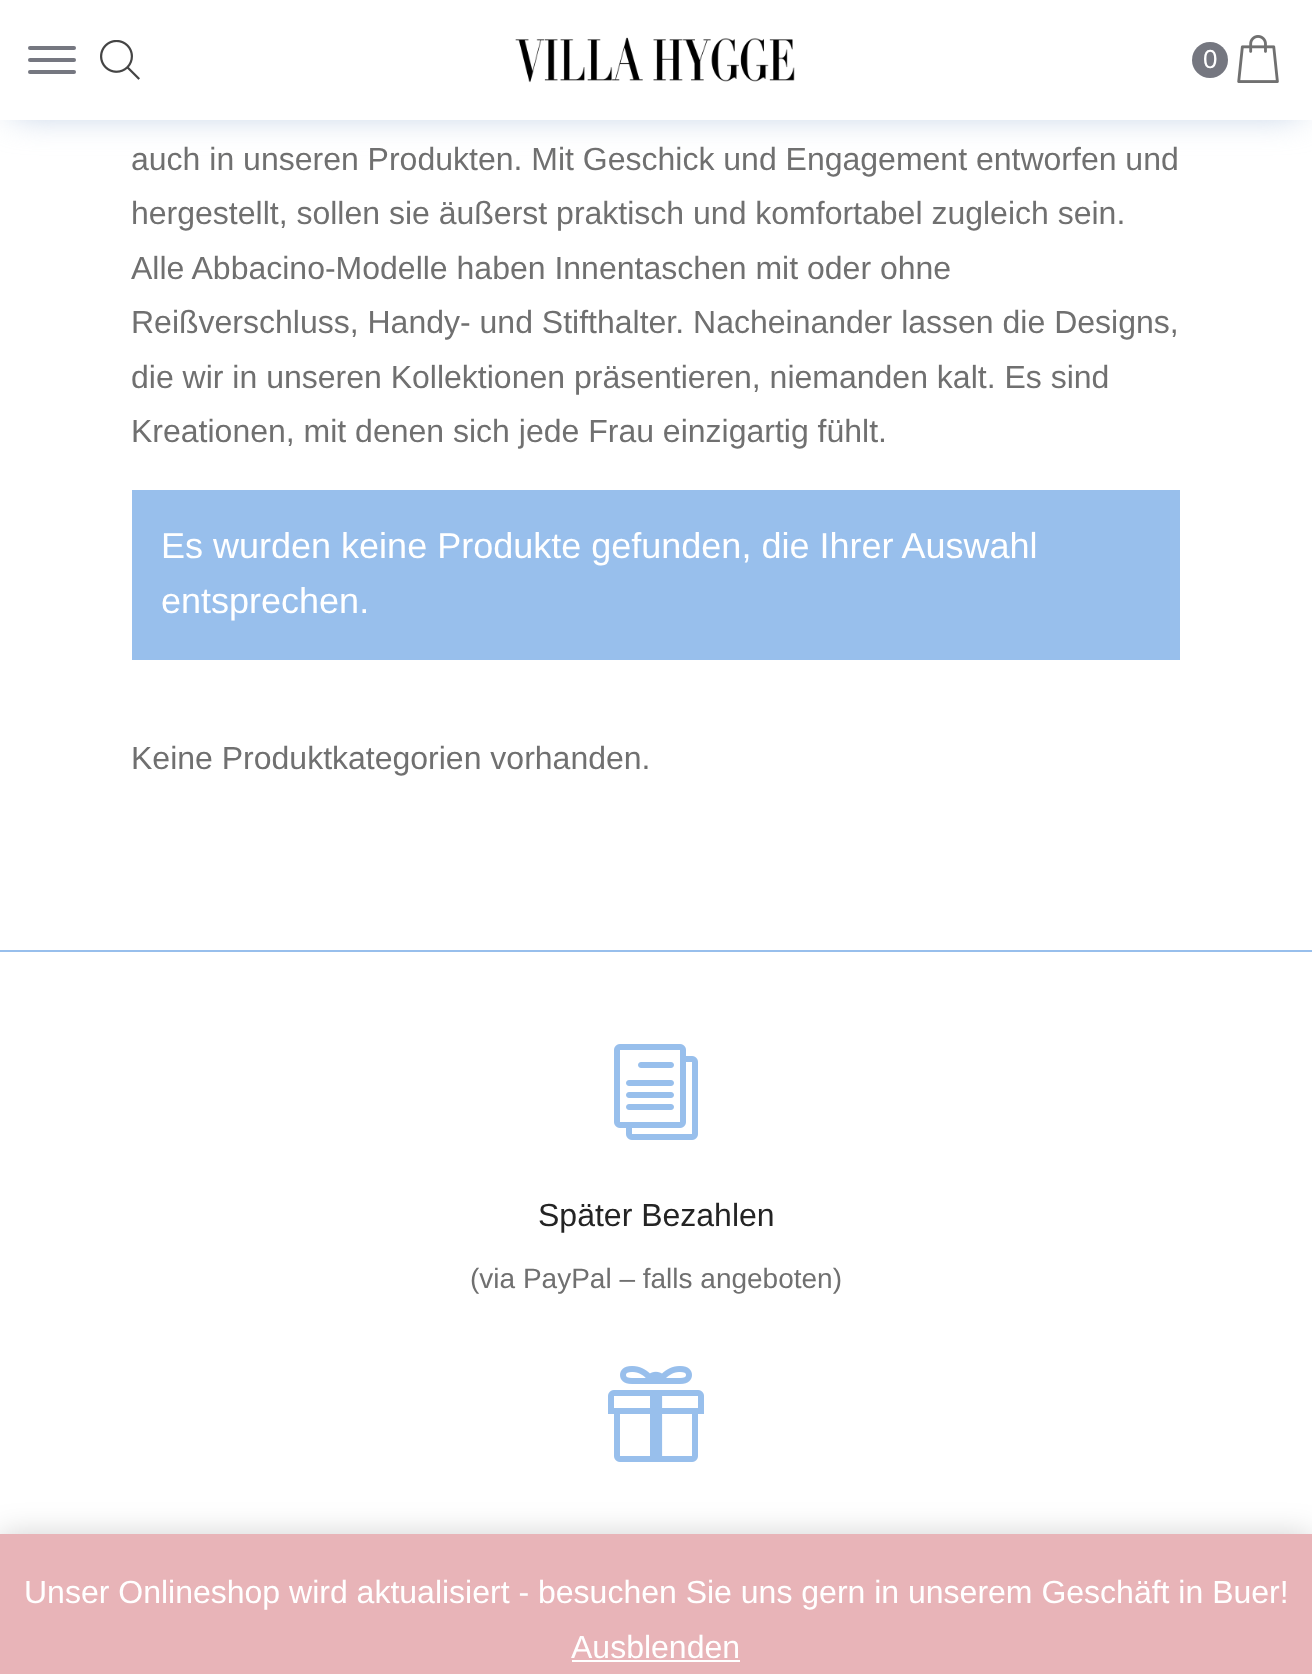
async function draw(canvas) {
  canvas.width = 1312
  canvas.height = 1674
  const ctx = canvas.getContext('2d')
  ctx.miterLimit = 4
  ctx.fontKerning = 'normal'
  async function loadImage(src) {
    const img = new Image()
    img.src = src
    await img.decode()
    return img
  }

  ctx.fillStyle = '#fff'
  ctx.fillRect(0, 0, 1312, 1674)
  ctx.fillStyle = '#b0c4de'
  ctx.filter = 'blur(18px)'
  ctx.beginPath()
  ctx.rect(12, 16, 1288, 96)
  ctx.fill()
  ctx.filter = 'none'
  ctx.fillStyle = '#fff'
  ctx.fillRect(0, 0, 1312, 120)
  ctx.fillStyle = '#757780'
  ctx.beginPath()
  ctx.roundRect(28, 46, 48, 4, 2)
  ctx.fill()
  ctx.beginPath()
  ctx.roundRect(28, 58, 48, 4, 2)
  ctx.fill()
  ctx.beginPath()
  ctx.roundRect(28, 70, 48, 4, 2)
  ctx.fill()
  ctx.drawImage(await loadImage('image0.png'), 100, 40, 40, 40)
  ctx.drawImage(await loadImage('image1.png'), 515, 37, 280, 46)
  ctx.beginPath()
  ctx.arc(1210, 60, 18, 0, 2 * Math.PI)
  ctx.fill()
  ctx.font = '26px Liberation Sans'
  ctx.fillStyle = '#fff'
  ctx.fillText('0', 1203, 68)
  ctx.drawImage(await loadImage('image2.png'), 1237, 35, 42, 48)
  ctx.font = '32px Liberation Sans'
  ctx.fillStyle = '#707070'
  ctx.fillText('auch in unseren Produkten. Mit Geschick und Engagement entworfen und', 131, 170)
  ctx.fillText('hergestellt, sollen sie äußerst praktisch und komfortabel zugleich sein.', 131, 224)
  ctx.fillText('Alle Abbacino-Modelle haben Innentaschen mit oder ohne', 131, 279)
  ctx.fillText('Reißverschluss, Handy- und Stifthalter. Nacheinander lassen die Designs,', 131, 333)
  ctx.fillText('die wir in unseren Kollektionen präsentieren, niemanden kalt. Es sind', 131, 388)
  ctx.fillText('Kreationen, mit denen sich jede Frau einzigartig fühlt.', 131, 442)
  ctx.fillStyle = '#98bfec'
  ctx.fillRect(132, 490, 1048, 170)
  ctx.font = '36px Liberation Sans'
  ctx.fillStyle = '#fff'
  ctx.fillText('Es wurden keine Produkte gefunden, die Ihrer Auswahl', 161, 558)
  ctx.fillText('entsprechen.', 161, 613)
  ctx.font = '32px Liberation Sans'
  ctx.fillStyle = '#707070'
  ctx.fillText('Keine Produktkategorien vorhanden.', 131, 769)
  ctx.fillStyle = '#98bfec'
  ctx.fillRect(0, 950, 1312, 2)
  ctx.drawImage(await loadImage('image3.png'), 614, 1044, 84, 96)
  ctx.fillStyle = '#242424'
  ctx.fillText('Später Bezahlen', 538, 1226)
  ctx.font = '28px Liberation Sans'
  ctx.fillStyle = '#707070'
  ctx.fillText('(via PayPal – falls angeboten)', 470, 1288)
  ctx.drawImage(await loadImage('image4.png'), 608, 1366, 96, 96)
  ctx.fillStyle = '#00000033'
  ctx.filter = 'blur(16px)'
  ctx.beginPath()
  ctx.rect(0, 1536, 1312, 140)
  ctx.fill()
  ctx.filter = 'none'
  ctx.fillStyle = '#e8b4b8'
  ctx.fillRect(0, 1534, 1312, 140)
  ctx.font = '32px Liberation Sans'
  ctx.fillStyle = '#fff'
  ctx.fillText('Unser Onlineshop wird aktualisiert - besuchen Sie uns gern in unserem Geschäft in Buer!', 24, 1603)
  ctx.fillText('Ausblenden', 571, 1658)
  ctx.fillRect(572, 1660, 168, 2)
}

draw(document.querySelector('canvas'))
